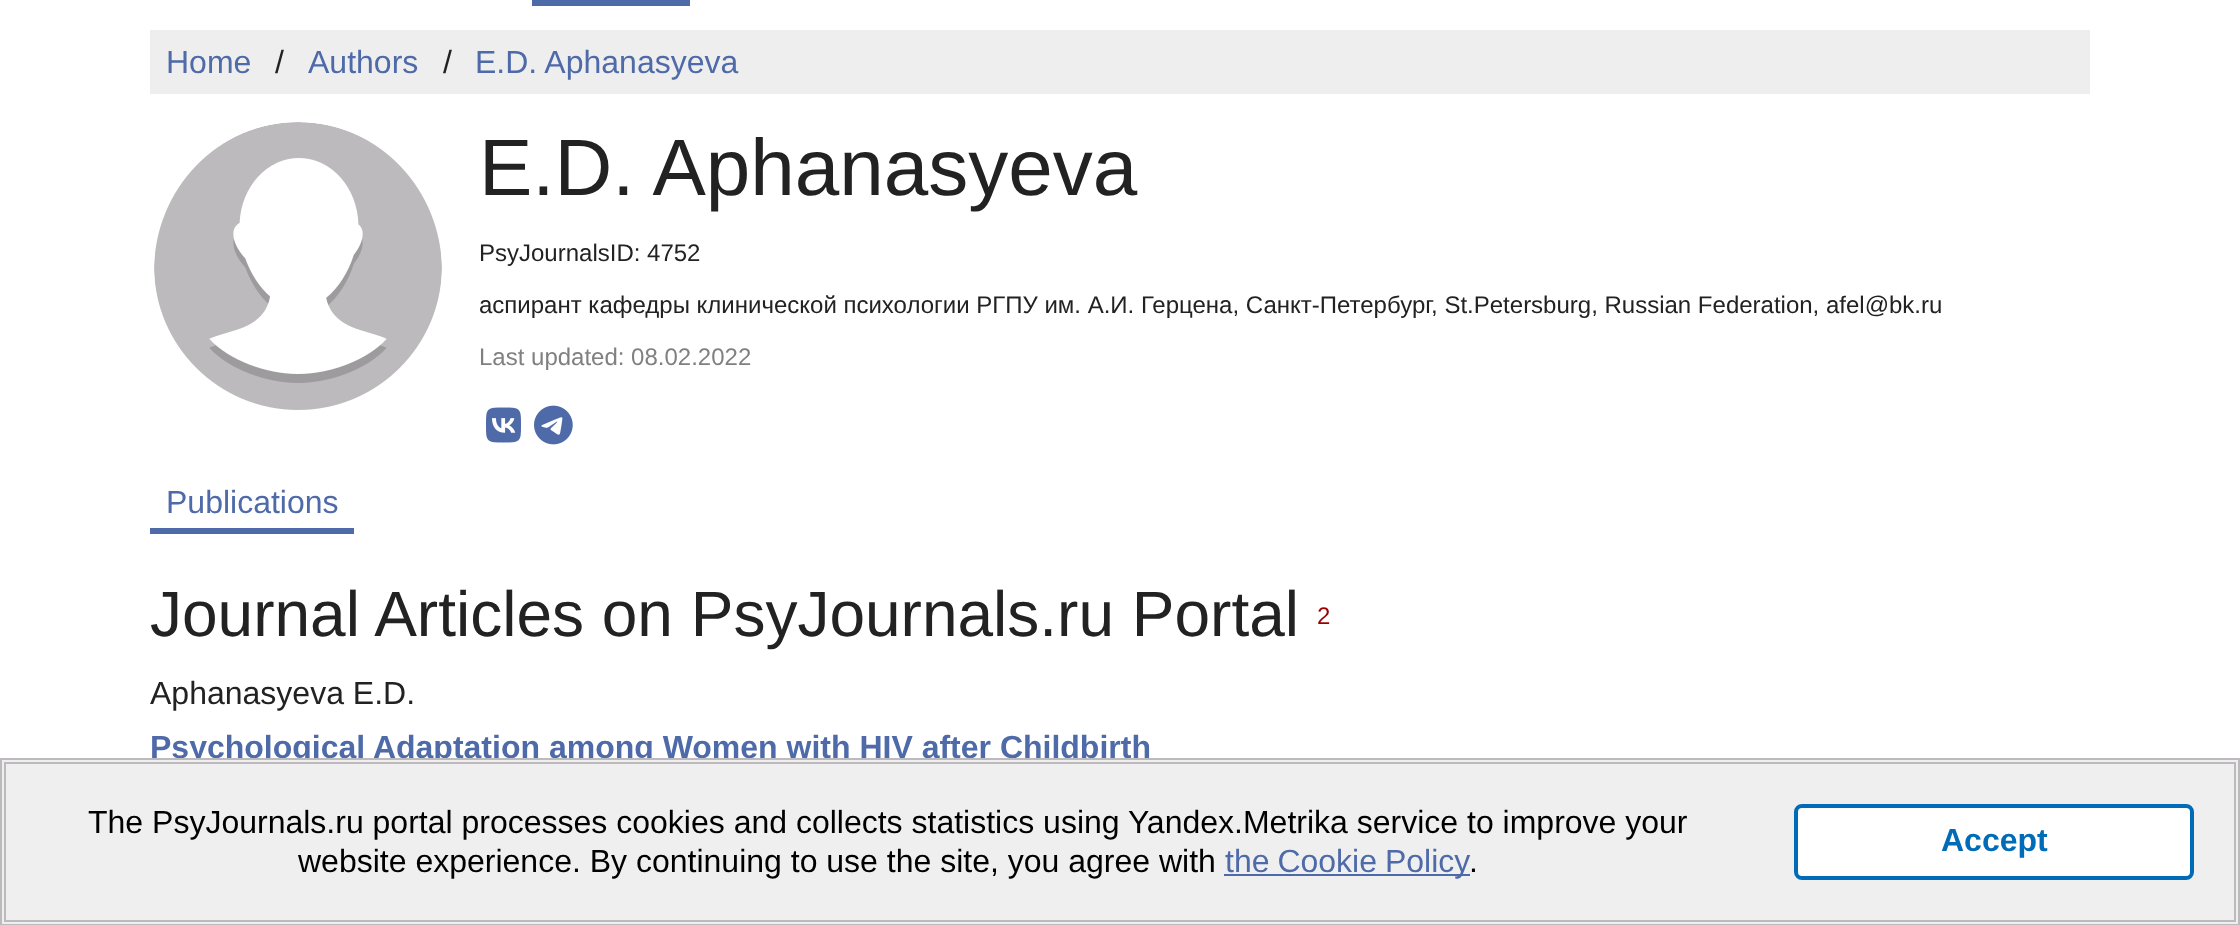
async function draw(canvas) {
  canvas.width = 2240
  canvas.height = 925
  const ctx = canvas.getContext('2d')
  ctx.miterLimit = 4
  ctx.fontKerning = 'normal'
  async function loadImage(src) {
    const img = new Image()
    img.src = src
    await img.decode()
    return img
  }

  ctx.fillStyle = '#fff'
  ctx.fillRect(0, 0, 2240, 925)
  ctx.fillStyle = '#4e6aa9'
  ctx.fillRect(532, 0, 158, 6)
  ctx.fillStyle = '#eee'
  ctx.fillRect(150, 30, 1940, 64)
  ctx.font = '32px Liberation Sans'
  ctx.fillStyle = '#4e6aa9'
  ctx.fillText('Home', 166, 73)
  ctx.fillStyle = '#222'
  ctx.fillText('/', 275, 73)
  ctx.fillStyle = '#4e6aa9'
  ctx.fillText('Authors', 308, 73)
  ctx.fillStyle = '#222'
  ctx.fillText('/', 443, 73)
  ctx.fillStyle = '#4e6aa9'
  ctx.fillText('E.D. Aphanasyeva', 475, 73)
  ctx.drawImage(await loadImage('image0.png'), 154, 122, 288, 288)
  ctx.font = '80px Liberation Sans'
  ctx.fillStyle = '#222'
  ctx.fillText('E.D. Aphanasyeva', 479, 195)
  ctx.font = '24px Liberation Sans'
  ctx.fillText('PsyJournalsID: 4752', 479, 261)
  ctx.fillText('аспирант кафедры клинической психологии РГПУ им. А.И. Герцена, Санкт-Петербург, St.Petersburg, Russian Federation, afel@bk.ru', 479, 313)
  ctx.fillStyle = '#808080'
  ctx.fillText('Last updated: 08.02.2022', 479, 365)
  ctx.drawImage(await loadImage('image1.png'), 486, 407, 35, 36)
  ctx.drawImage(await loadImage('image2.png'), 534, 405, 39, 40)
  ctx.fillStyle = '#4e6aa9'
  ctx.fillRect(150, 528, 204, 6)
  ctx.font = '32px Liberation Sans'
  ctx.fillText('Publications', 166, 513)
  ctx.font = '64px Liberation Sans'
  ctx.fillStyle = '#222'
  ctx.fillText('Journal Articles on PsyJournals.ru Portal', 150, 636)
  ctx.font = '24px Liberation Sans'
  ctx.fillStyle = '#900'
  ctx.fillText('2', 1317, 624)
  ctx.font = '32px Liberation Sans'
  ctx.fillStyle = '#222'
  ctx.fillText('Aphanasyeva E.D.', 150, 704)
  ctx.font = 'bold 32px Liberation Sans'
  ctx.fillStyle = '#4e6aa9'
  ctx.fillText('Psychological Adaptation among Women with HIV after Childbirth', 150, 758)
  ctx.fillStyle = '#efefef'
  ctx.beginPath()
  ctx.rect(1, 759, 2238, 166)
  ctx.fill()
  ctx.strokeStyle = '#bdbabd'
  ctx.lineWidth = 2
  ctx.stroke()
  ctx.strokeRect(5, 763, 2230, 158)
  ctx.font = '32px Liberation Sans'
  ctx.fillStyle = '#000'
  ctx.fillText('The PsyJournals.ru portal processes cookies and collects statistics using Yandex.Metrika service to improve your', 88, 833)
  ctx.fillText('website experience. By continuing to use the site, you agree with', 298, 872)
  ctx.fillStyle = '#4e6aa9'
  ctx.fillRect(1224, 874, 246, 2)
  ctx.wordSpacing = '-1px'
  ctx.fillText('the Cookie Policy', 1225, 872)
  ctx.wordSpacing = '0px'
  ctx.fillStyle = '#000'
  ctx.fillText('.', 1469, 872)
  ctx.fillStyle = '#fff'
  ctx.beginPath()
  ctx.roundRect(1796, 806, 396, 72, 6)
  ctx.fill()
  ctx.strokeStyle = '#006cb7'
  ctx.lineWidth = 4
  ctx.stroke()
  ctx.font = 'bold 32px Liberation Sans'
  ctx.fillStyle = '#006cb7'
  ctx.fillText('Accept', 1941, 851)
}

draw(document.querySelector('canvas'))
